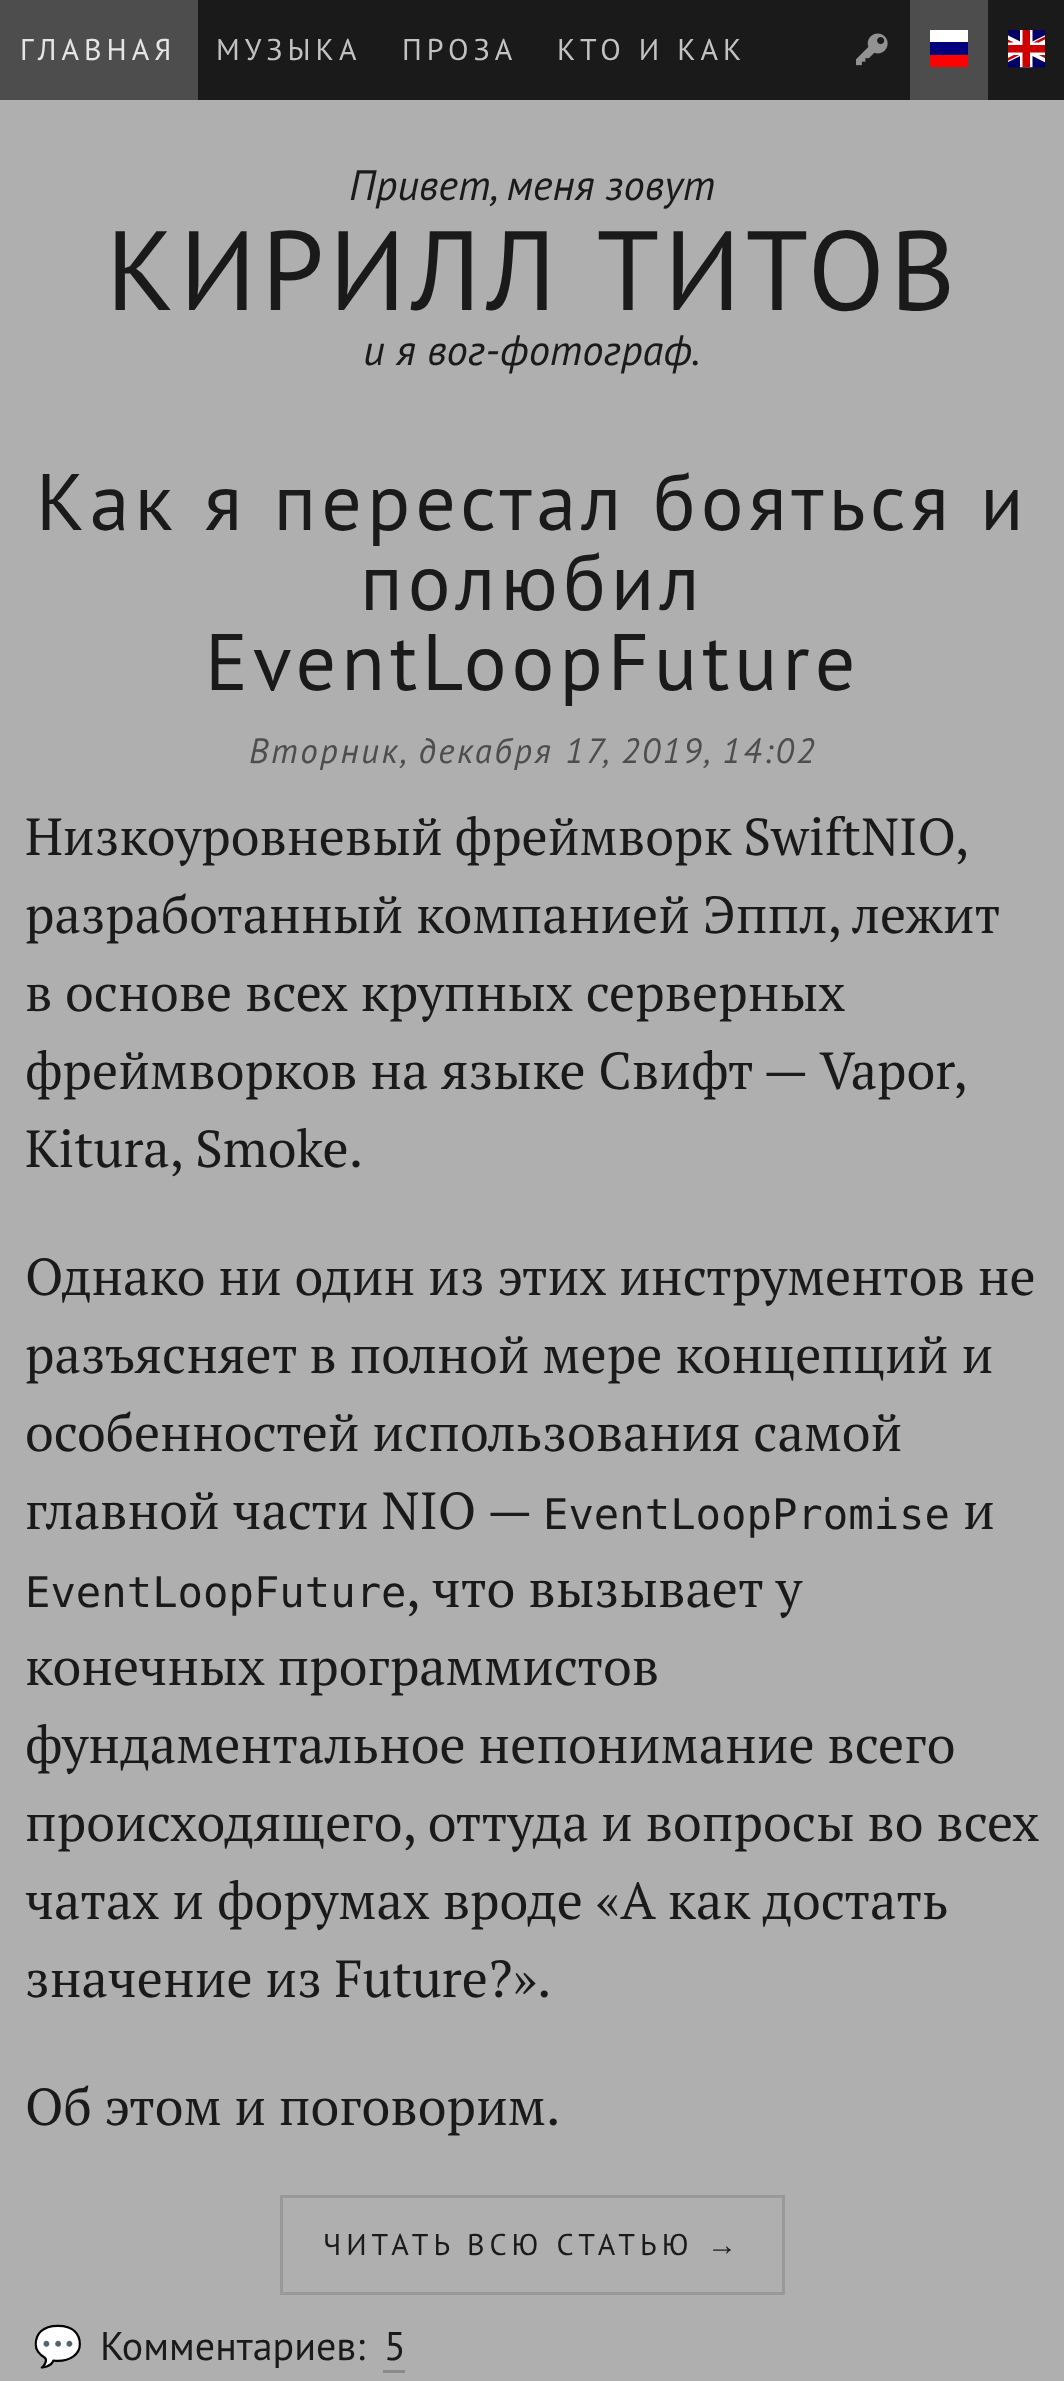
async function draw(canvas) {
  canvas.width = 1064
  canvas.height = 2381
  const ctx = canvas.getContext('2d')
  ctx.miterLimit = 4
  ctx.fontKerning = 'normal'
  async function loadImage(src) {
    const img = new Image()
    img.src = src
    await img.decode()
    return img
  }

  ctx.fillStyle = '#afafaf'
  ctx.fillRect(0, 0, 1064, 2381)
  ctx.fillStyle = '#1a1a1a'
  ctx.fillRect(198, 0, 866, 100)
  ctx.fillStyle = '#4d4d4d'
  ctx.fillRect(0, 0, 198, 100)
  ctx.letterSpacing = '5px'
  ctx.font = '30px PT Sans'
  ctx.fillStyle = '#e5e5e5'
  ctx.fillText('ГЛАВНАЯ', 20, 60)
  ctx.fillStyle = '#c2c2c2'
  ctx.fillText('МУЗЫКА', 216, 60)
  ctx.fillText('ПРОЗА', 402, 60)
  ctx.fillText('КТО И КАК', 557, 60)
  ctx.drawImage(await loadImage('image0.png'), 856, 33, 32, 33)
  ctx.fillStyle = '#4d4d4d'
  ctx.fillRect(910, 0, 78, 100)
  ctx.fillStyle = '#fff'
  ctx.fillRect(930, 30, 38, 12)
  ctx.fillStyle = '#01017e'
  ctx.fillRect(930, 42, 38, 13)
  ctx.fillStyle = '#fe0101'
  ctx.fillRect(930, 55, 38, 12)
  ctx.drawImage(await loadImage('image1.png'), 1008, 30, 37, 38)
  ctx.letterSpacing = '0px'
  ctx.font = 'italic 42.5px PT Sans'
  ctx.fillStyle = '#1a1a1a'
  ctx.fillText('Привет, меня зовут', 349, 200)
  ctx.letterSpacing = '5px'
  ctx.wordSpacing = '4px'
  ctx.font = '112.5px PT Sans'
  ctx.fillText('КИРИЛЛ ТИТОВ', 106, 310)
  ctx.letterSpacing = '0px'
  ctx.wordSpacing = '0px'
  ctx.font = 'italic 42.5px PT Sans'
  ctx.fillText('и я вог-фотограф.', 363, 365)
  ctx.letterSpacing = '5px'
  ctx.font = '80px PT Sans'
  ctx.fillText('Как я перестал бояться и', 36, 530)
  ctx.fillText('полюбил', 360, 610)
  ctx.fillText('EventLoopFuture', 205, 690)
  ctx.letterSpacing = '2.5px'
  ctx.font = 'italic 35px PT Sans'
  ctx.fillStyle = '#4d4d4d'
  ctx.fillText('Вторник, декабря 17, 2019, 14:02', 249, 763)
  ctx.letterSpacing = '0px'
  ctx.wordSpacing = '-1px'
  ctx.font = '52px PT Serif'
  ctx.fillStyle = '#1a1a1a'
  ctx.fillText('Низкоуровневый фреймворк SwiftNIO,', 25, 855)
  ctx.wordSpacing = '0px'
  ctx.fillText('разработанный компанией Эппл, лежит', 25, 933)
  ctx.fillText('в основе всех крупных серверных', 25, 1011)
  ctx.fillText('фреймворков на языке Свифт — Vapor,', 25, 1089)
  ctx.fillText('Kitura, Smoke.', 25, 1167)
  ctx.fillText('Однако ни один из этих инструментов не', 25, 1295)
  ctx.wordSpacing = '0.25px'
  ctx.fillText('разъясняет в полной мере концепций и', 25, 1373)
  ctx.wordSpacing = '0px'
  ctx.fillText('особенностей использования самой', 25, 1451)
  ctx.fillText('главной части NIO —', 25, 1529)
  ctx.font = '42.25px DejaVu Sans Mono'
  ctx.fillText('EventLoopPromise', 543, 1529)
  ctx.font = '52px PT Serif'
  ctx.fillText('и', 963, 1529)
  ctx.font = '42.25px DejaVu Sans Mono'
  ctx.fillText('EventLoopFuture', 25, 1607)
  ctx.wordSpacing = '0.5px'
  ctx.font = '52px PT Serif'
  ctx.fillText(', что вызывает у', 406, 1607)
  ctx.wordSpacing = '0px'
  ctx.fillText('конечных программистов', 25, 1685)
  ctx.fillText('фундаментальное непонимание всего', 25, 1763)
  ctx.fillText('происходящего, оттуда и вопросы во всех', 25, 1841)
  ctx.wordSpacing = '0.25px'
  ctx.fillText('чатах и форумах вроде «А как достать', 25, 1919)
  ctx.wordSpacing = '0px'
  ctx.fillText('значение из Future?».', 25, 1997)
  ctx.fillText('Об этом и поговорим.', 25, 2125)
  ctx.strokeStyle = '#999'
  ctx.lineWidth = 3
  ctx.strokeRect(281.5, 2196.5, 502, 97)
  ctx.letterSpacing = '5px'
  ctx.font = '30px PT Sans'
  ctx.fillText('ЧИТАТЬ ВСЮ СТАТЬЮ', 323, 2255)
  ctx.font = '30px Liberation Sans'
  ctx.fillText('→', 707, 2255)
  ctx.letterSpacing = '0px'
  ctx.font = '40px Noto Color Emoji'
  ctx.fillText('💬', 33, 2360)
  ctx.font = '40px PT Sans'
  ctx.fillText('Комментариев:', 100, 2360)
  ctx.fillText('5', 384, 2360)
  ctx.fillStyle = '#8a8a8a'
  ctx.fillRect(383, 2370, 22, 3)
}

draw(document.querySelector('canvas'))
